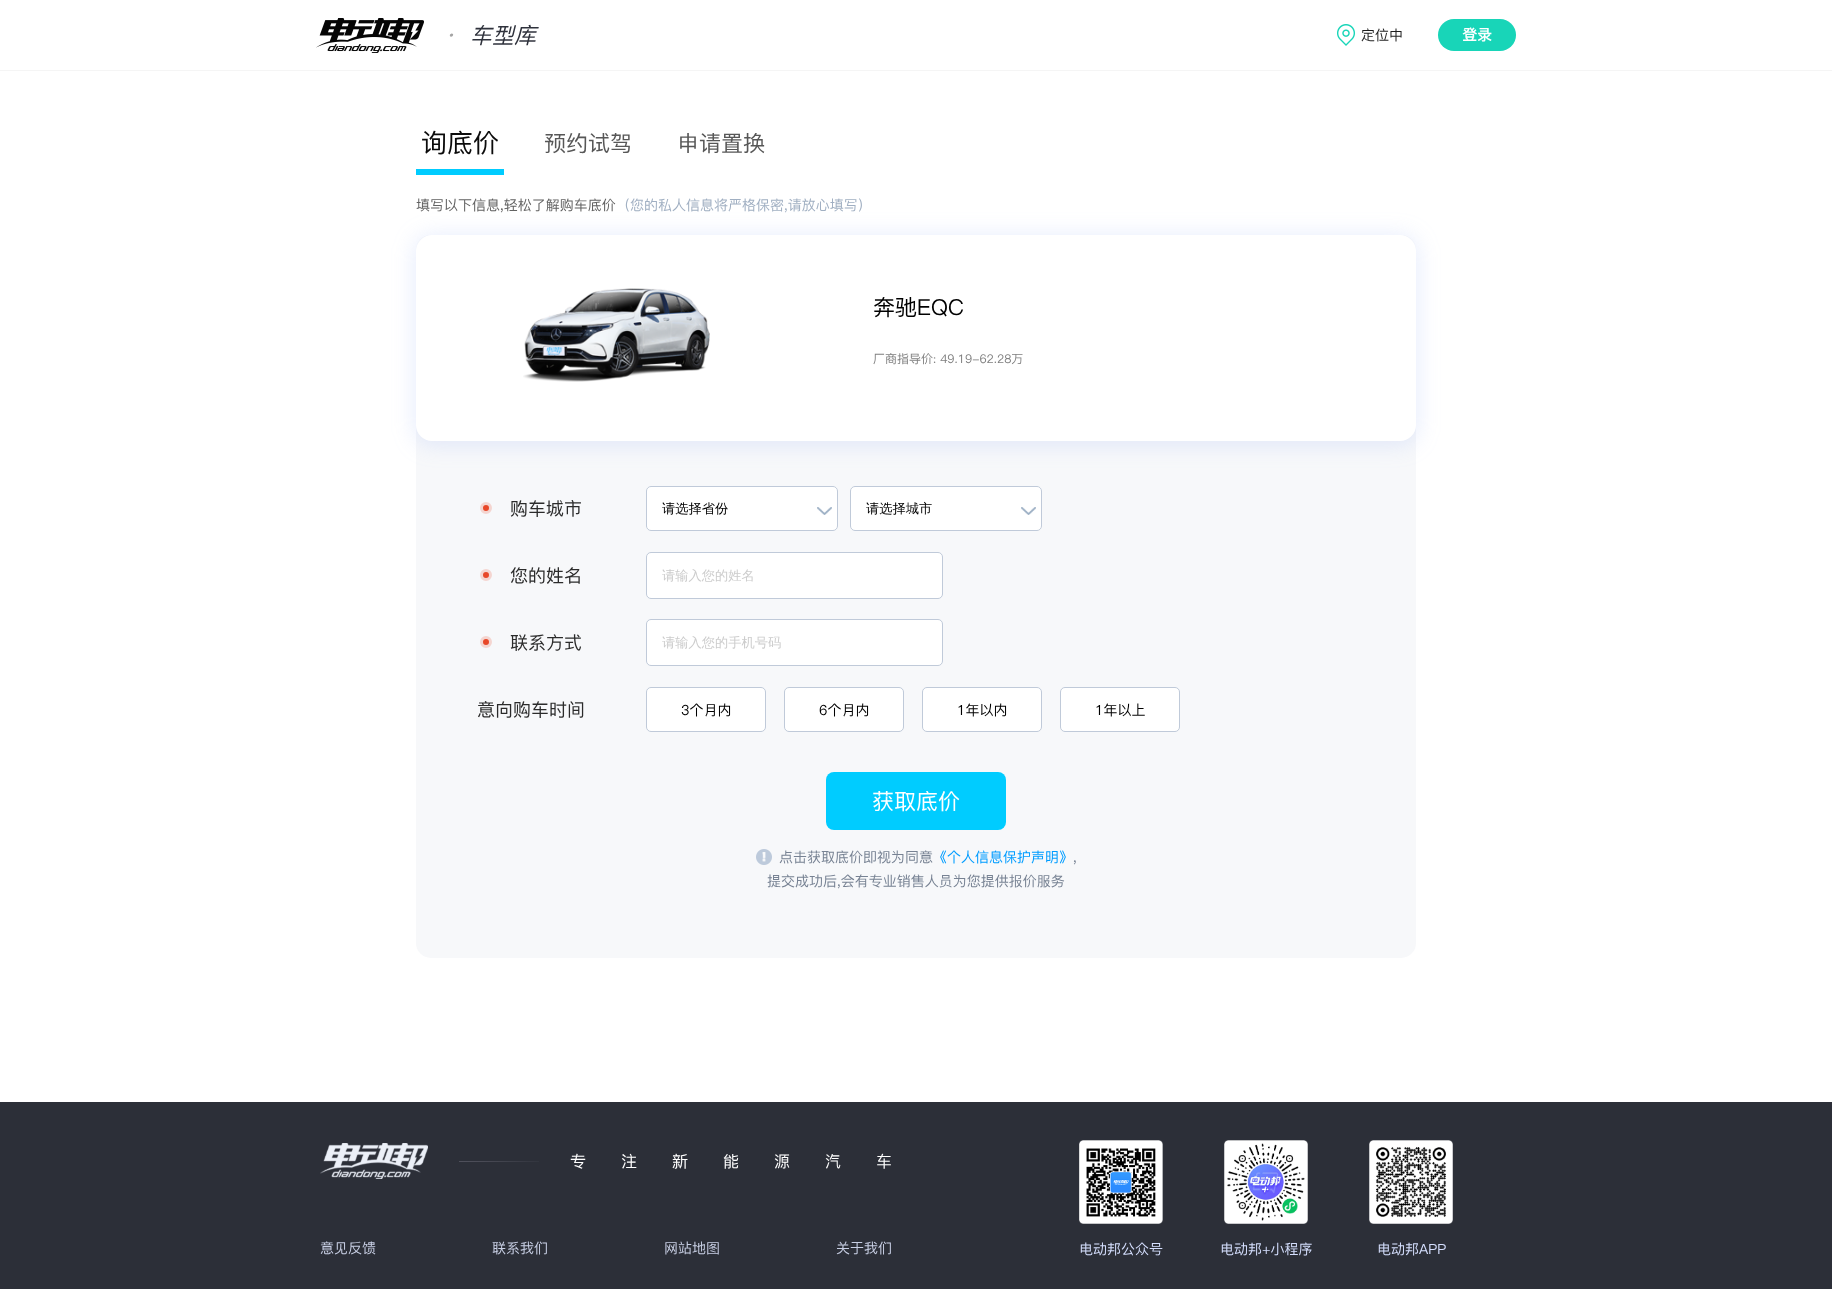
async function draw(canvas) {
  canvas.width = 1832
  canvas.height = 1289
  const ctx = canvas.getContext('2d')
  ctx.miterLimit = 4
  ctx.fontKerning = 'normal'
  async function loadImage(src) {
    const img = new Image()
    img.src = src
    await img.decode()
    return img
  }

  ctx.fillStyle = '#fff'
  ctx.fillRect(0, 0, 1832, 1289)
  ctx.fillStyle = '#f5f5f5'
  ctx.fillRect(0, 70, 1832, 1)
  ctx.drawImage(await loadImage('image0.png'), 316, 18, 108, 35)
  ctx.font = 'italic 22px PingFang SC'
  ctx.fillStyle = '#a4a4a4'
  ctx.fillText('·', 444, 43)
  ctx.fillStyle = '#2f323c'
  ctx.fillText('车型库', 470, 43)
  ctx.drawImage(await loadImage('image1.png'), 1337, 24, 18, 22)
  ctx.font = '14px PingFang SC'
  ctx.fillStyle = '#1d1d1d'
  ctx.fillText('定位中', 1361, 40)
  ctx.fillStyle = '#18d5b8'
  ctx.beginPath()
  ctx.roundRect(1438, 19, 78, 32, 16)
  ctx.fill()
  ctx.font = 'bold 15px PingFang SC'
  ctx.fillStyle = '#fff'
  ctx.fillText('登录', 1462, 40)
  ctx.font = '26px PingFang SC'
  ctx.fillStyle = '#0b0b0b'
  ctx.fillText('询底价', 421, 152)
  ctx.fillStyle = '#0cf'
  ctx.fillRect(416, 169, 88, 6)
  ctx.font = '22px PingFang SC'
  ctx.fillStyle = '#575757'
  ctx.fillText('预约试驾', 544, 151)
  ctx.fillText('申请置换', 677, 151)
  ctx.fillStyle = '#f7f8fa'
  ctx.beginPath()
  ctx.roundRect(416, 235, 1000, 723, 15)
  ctx.fill()
  ctx.fillStyle = '#86a7f633'
  ctx.filter = 'blur(11px)'
  ctx.beginPath()
  ctx.roundRect(414, 235, 1004, 210, 18)
  ctx.fill()
  ctx.filter = 'none'
  ctx.font = '14px PingFang SC'
  ctx.fillStyle = '#626262'
  ctx.fillText('填写以下信息,轻松了解购车底价', 416, 210)
  ctx.fillStyle = '#a0afc2'
  ctx.fillText('（您的私人信息将严格保密,请放心填写）', 616, 210)
  ctx.fillStyle = '#fff'
  ctx.beginPath()
  ctx.roundRect(416, 235, 1000, 206, 16)
  ctx.fill()
  ctx.drawImage(await loadImage('image2.png'), 523, 288, 187, 94)
  ctx.font = '22px PingFang SC'
  ctx.fillStyle = '#000'
  ctx.fillText('奔驰EQC', 873, 315)
  ctx.font = '12px PingFang SC'
  ctx.fillStyle = '#7f7f7f'
  ctx.fillText('厂商指导价: 49.19-62.28万', 873, 363)
  ctx.fillStyle = '#e84728'
  ctx.beginPath()
  ctx.arc(486, 508, 4.5, 0, 2 * Math.PI)
  ctx.fill()
  ctx.strokeStyle = '#f4d5d0'
  ctx.lineWidth = 3
  ctx.stroke()
  ctx.font = '18px PingFang SC'
  ctx.fillStyle = '#2b2b2b'
  ctx.fillText('购车城市', 510, 515)
  ctx.fillStyle = '#fff'
  ctx.beginPath()
  ctx.roundRect(646, 486, 192, 45, 5)
  ctx.fill()
  ctx.drawImage(await loadImage('image3.png'), 817, 507, 15, 8)
  ctx.beginPath()
  ctx.roundRect(646.5, 486.5, 191, 44, 4.5)
  ctx.strokeStyle = '#c0cad9'
  ctx.lineWidth = 1
  ctx.stroke()
  ctx.font = '500 13.25px WenQuanYi Zen Hei'
  ctx.fillStyle = '#000'
  ctx.fillText('请选择省份', 662, 513)
  ctx.fillStyle = '#fff'
  ctx.beginPath()
  ctx.roundRect(850, 486, 192, 45, 5)
  ctx.fill()
  ctx.drawImage(await loadImage('image4.png'), 1021, 507, 15, 8)
  ctx.beginPath()
  ctx.roundRect(850.5, 486.5, 191, 44, 4.5)
  ctx.stroke()
  ctx.fillStyle = '#000'
  ctx.fillText('请选择城市', 866, 513)
  ctx.fillStyle = '#e84728'
  ctx.beginPath()
  ctx.arc(486, 575, 4.5, 0, 2 * Math.PI)
  ctx.fill()
  ctx.strokeStyle = '#f4d5d0'
  ctx.lineWidth = 3
  ctx.stroke()
  ctx.font = '18px PingFang SC'
  ctx.fillStyle = '#2b2b2b'
  ctx.fillText('您的姓名', 510, 582)
  ctx.fillStyle = '#fff'
  ctx.beginPath()
  ctx.roundRect(646.5, 552.5, 296, 46, 4.5)
  ctx.fill()
  ctx.strokeStyle = '#c0cad9'
  ctx.lineWidth = 1
  ctx.stroke()
  ctx.font = '500 13.25px WenQuanYi Zen Hei'
  ctx.fillStyle = '#ccc'
  ctx.fillText('请输入您的姓名', 662, 580)
  ctx.fillStyle = '#e84728'
  ctx.beginPath()
  ctx.arc(486, 642, 4.5, 0, 2 * Math.PI)
  ctx.fill()
  ctx.strokeStyle = '#f4d5d0'
  ctx.lineWidth = 3
  ctx.stroke()
  ctx.font = '18px PingFang SC'
  ctx.fillStyle = '#2b2b2b'
  ctx.fillText('联系方式', 510, 649)
  ctx.fillStyle = '#fff'
  ctx.beginPath()
  ctx.roundRect(646.5, 619.5, 296, 46, 4.5)
  ctx.fill()
  ctx.strokeStyle = '#c0cad9'
  ctx.lineWidth = 1
  ctx.stroke()
  ctx.font = '500 13.25px WenQuanYi Zen Hei'
  ctx.fillStyle = '#ccc'
  ctx.fillText('请输入您的手机号码', 662, 647)
  ctx.font = '18px PingFang SC'
  ctx.fillStyle = '#2b2b2b'
  ctx.fillText('意向购车时间', 477, 716)
  ctx.fillStyle = '#fff'
  ctx.beginPath()
  ctx.roundRect(646.5, 687.5, 119, 44, 4.5)
  ctx.fill()
  ctx.stroke()
  ctx.font = '14px PingFang SC'
  ctx.fillStyle = '#000'
  ctx.fillText('3个月内', 681, 715)
  ctx.fillStyle = '#fff'
  ctx.beginPath()
  ctx.roundRect(784.5, 687.5, 119, 44, 4.5)
  ctx.fill()
  ctx.stroke()
  ctx.fillStyle = '#000'
  ctx.fillText('6个月内', 819, 715)
  ctx.fillStyle = '#fff'
  ctx.beginPath()
  ctx.roundRect(922.5, 687.5, 119, 44, 4.5)
  ctx.fill()
  ctx.stroke()
  ctx.fillStyle = '#000'
  ctx.fillText('1年以内', 957, 715)
  ctx.fillStyle = '#fff'
  ctx.beginPath()
  ctx.roundRect(1060.5, 687.5, 119, 44, 4.5)
  ctx.fill()
  ctx.stroke()
  ctx.fillStyle = '#000'
  ctx.fillText('1年以上', 1095, 715)
  ctx.fillStyle = '#0cf'
  ctx.beginPath()
  ctx.roundRect(826, 772, 180, 58, 8)
  ctx.fill()
  ctx.font = '22px PingFang SC'
  ctx.fillStyle = '#fff'
  ctx.fillText('获取底价', 872, 809)
  ctx.drawImage(await loadImage('image5.png'), 756, 849, 16, 16)
  ctx.font = '14px PingFang SC'
  ctx.fillStyle = '#778293'
  ctx.fillText('点击获取底价即视为同意', 779, 862)
  ctx.fillStyle = '#009cff'
  ctx.fillText('《个人信息保护声明》', 933, 862)
  ctx.fillStyle = '#778293'
  ctx.fillText(',', 1073, 862)
  ctx.fillText('提交成功后,会有专业销售人员为您提供报价服务', 767, 886)
  ctx.fillStyle = '#2c2f38'
  ctx.fillRect(0, 1102, 1832, 187)
  ctx.drawImage(await loadImage('image6.png'), 320, 1143, 108, 36)
  ctx.drawImage(await loadImage('image7.png'), 459, 1161, 80, 1)
  ctx.letterSpacing = '35px'
  ctx.font = '16px PingFang SC'
  ctx.fillStyle = '#fff'
  ctx.fillText('专注新能源汽车', 570, 1167)
  ctx.letterSpacing = '0px'
  ctx.font = '14px PingFang SC'
  ctx.fillStyle = '#c8cfe4'
  ctx.fillText('意见反馈', 320, 1253)
  ctx.fillText('联系我们', 492, 1253)
  ctx.fillText('网站地图', 664, 1253)
  ctx.fillText('关于我们', 836, 1253)
  ctx.drawImage(await loadImage('image8.png'), 1079, 1140, 84, 84)
  ctx.fillStyle = '#d5dffe'
  ctx.fillText('电动邦公众号', 1079, 1254)
  ctx.drawImage(await loadImage('image9.png'), 1224, 1140, 84, 84)
  ctx.fillText('电动邦+小程序', 1220, 1254)
  ctx.drawImage(await loadImage('image10.png'), 1369, 1140, 84, 84)
  ctx.fillText('电动邦APP', 1377, 1254)
}

draw(document.querySelector('canvas'))
